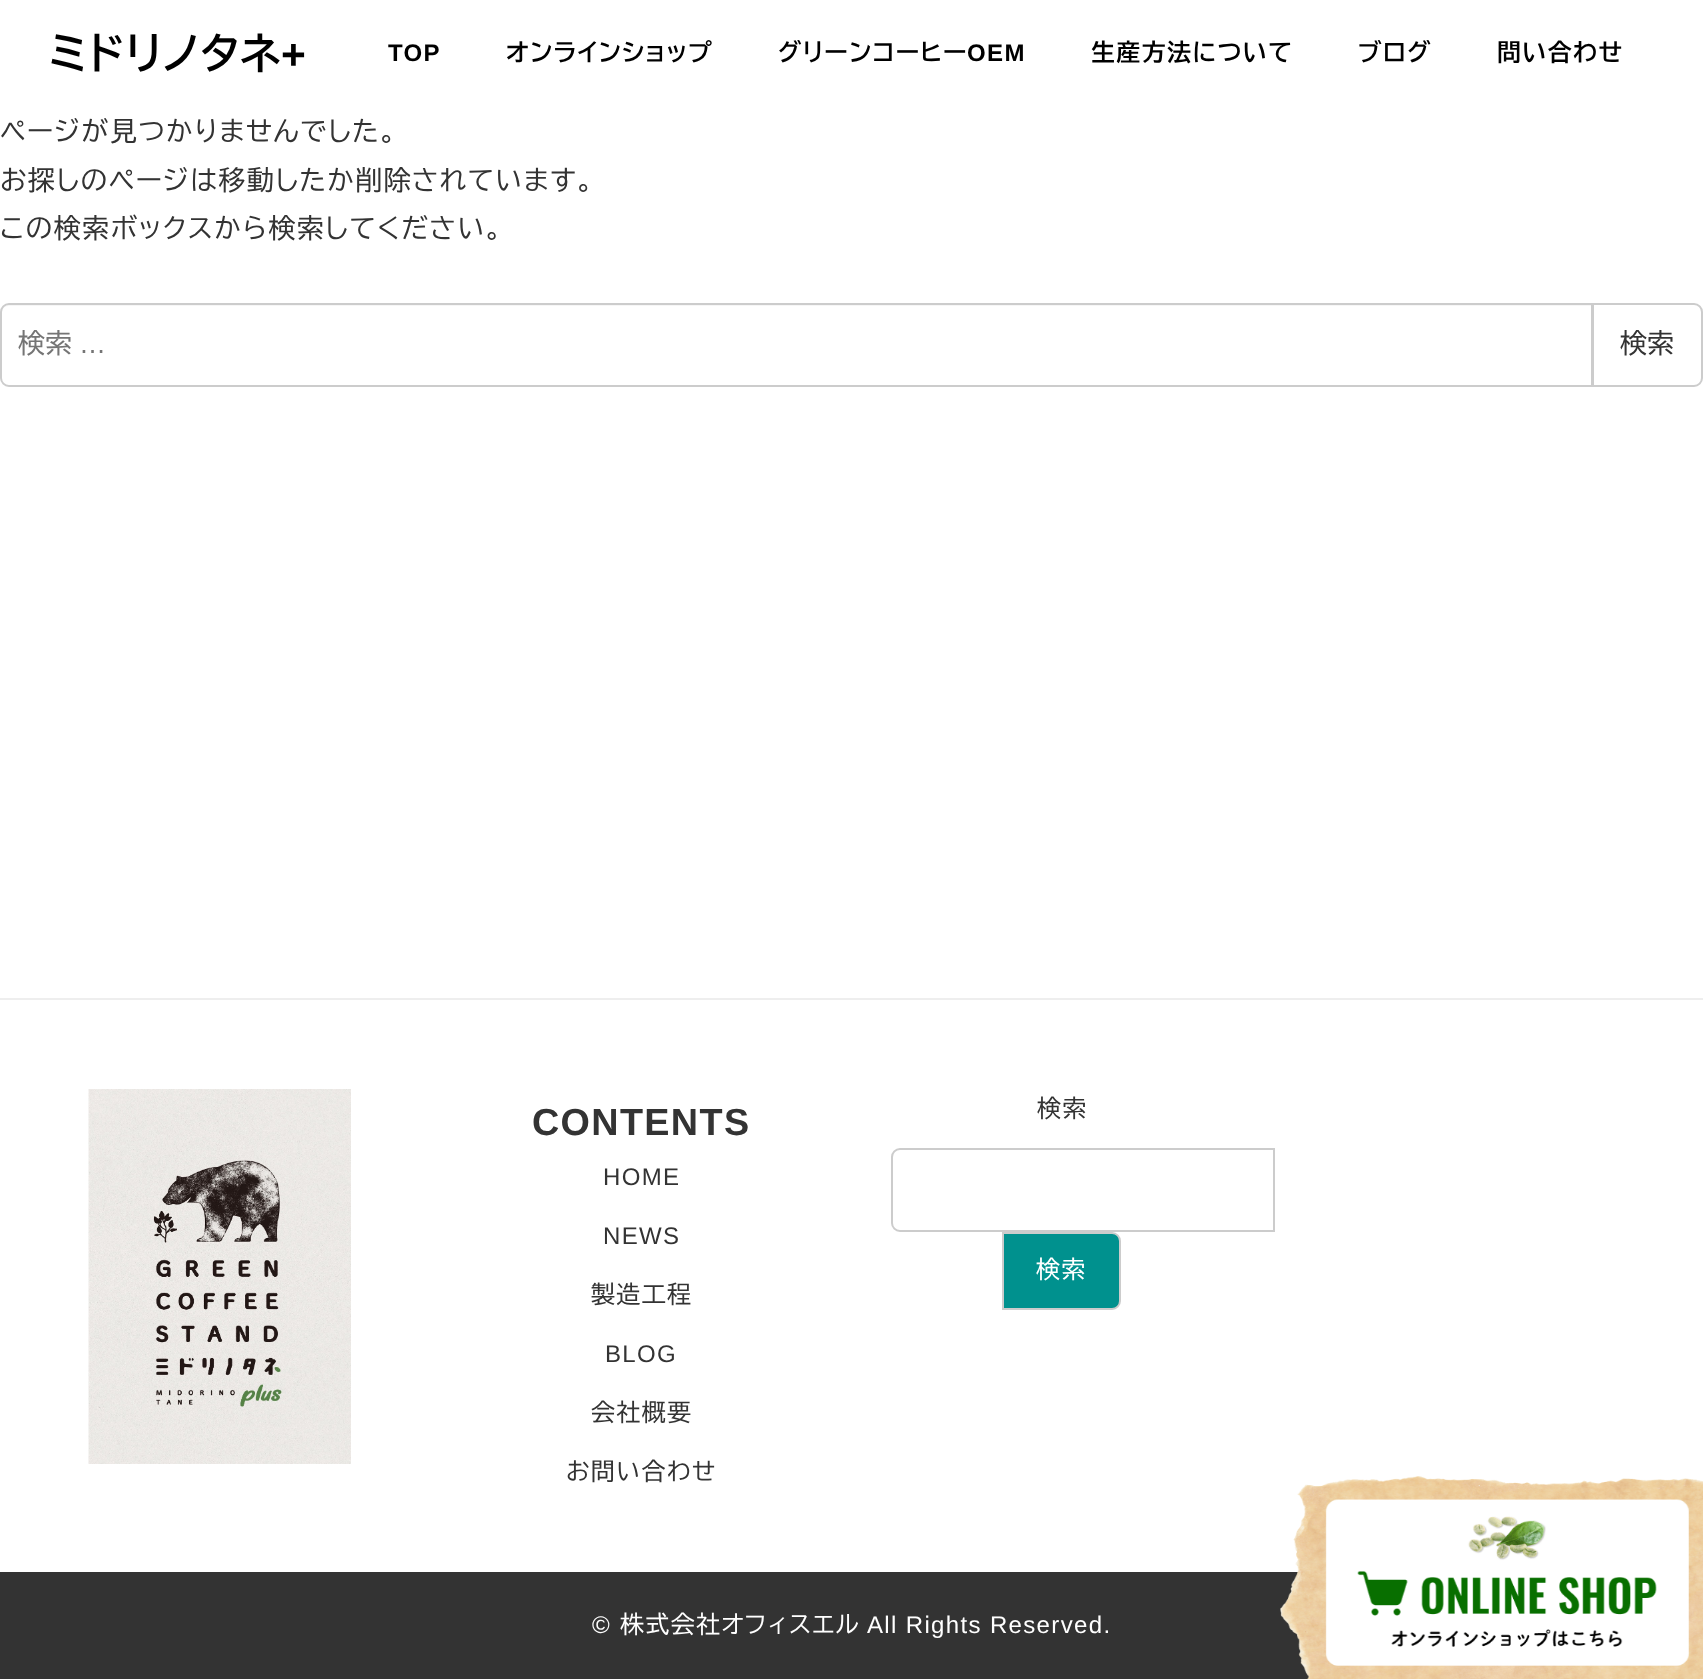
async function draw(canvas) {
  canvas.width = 1703
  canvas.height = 1679
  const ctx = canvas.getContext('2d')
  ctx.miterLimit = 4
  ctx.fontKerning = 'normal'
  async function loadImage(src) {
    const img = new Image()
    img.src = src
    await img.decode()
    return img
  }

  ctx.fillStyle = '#fff'
  ctx.fillRect(0, 0, 1703, 1679)
  ctx.letterSpacing = '1.35px'
  ctx.font = 'bold 42.5px BIZ UDPGothic'
  ctx.fillStyle = '#000'
  ctx.fillText('ミドリノタネ', 49, 69)
  ctx.font = 'bold 42.5px Liberation Sans'
  ctx.fillText('+', 281, 69)
  ctx.font = 'bold 24px Liberation Sans'
  ctx.fillText('TOP', 388, 61)
  ctx.font = 'bold 24px BIZ UDPGothic'
  ctx.fillText('オンラインショップ', 506, 61)
  ctx.fillText('グリーンコーヒー', 778, 61)
  ctx.font = 'bold 24px Liberation Sans'
  ctx.fillText('OEM', 967, 61)
  ctx.font = 'bold 24px BIZ UDPGothic'
  ctx.fillText('生産方法について', 1091, 61)
  ctx.fillText('ブログ', 1358, 61)
  ctx.fillText('問い合わせ', 1497, 61)
  ctx.font = '27px BIZ UDPGothic'
  ctx.fillStyle = '#333'
  ctx.fillText('ページが見つかりませんでした。', 0, 141)
  ctx.fillText('お探しのページは移動したか削除されています。', 0, 190)
  ctx.fillText('この検索ボックスから検索してください。', 0, 238)
  ctx.beginPath()
  ctx.roundRect(1593, 304, 109, 82, [0, 8, 8, 0])
  ctx.strokeStyle = '#ccc'
  ctx.lineWidth = 2
  ctx.stroke()
  ctx.fillStyle = '#fff'
  ctx.beginPath()
  ctx.roundRect(0, 303, 1593, 84, [9, 0, 0, 9])
  ctx.fill()
  ctx.fillStyle = '#f6f6f6'
  ctx.beginPath()
  ctx.moveTo(9, 306)
  ctx.lineTo(1592, 306)
  ctx.lineTo(1592, 305)
  ctx.lineTo(10, 305)
  ctx.bezierCurveTo(5, 305, 2, 309, 2, 314)
  ctx.bezierCurveTo(2, 309, 5, 306, 9, 306)
  ctx.closePath()
  ctx.fill()
  ctx.beginPath()
  ctx.roundRect(1, 304, 1591, 82, [8, 0, 0, 8])
  ctx.stroke()
  ctx.letterSpacing = '0px'
  ctx.fillStyle = '#757575'
  ctx.fillText('検索', 18, 353)
  ctx.font = '27px Liberation Sans'
  ctx.fillText('…', 79, 353)
  ctx.font = '27px BIZ UDPGothic'
  ctx.fillStyle = '#333'
  ctx.fillText('検索', 1620, 353)
  ctx.fillStyle = '#eee'
  ctx.fillRect(0, 998, 1703, 2)
  ctx.drawImage(await loadImage('image0.png'), 88, 1089, 263, 375)
  ctx.letterSpacing = '1.35px'
  ctx.font = 'bold 37.75px Liberation Sans'
  ctx.fillStyle = '#333'
  ctx.fillText('CONTENTS', 532, 1135)
  ctx.font = '24px Liberation Sans'
  ctx.fillText('HOME', 603, 1185)
  ctx.fillText('NEWS', 603, 1244)
  ctx.font = '24px BIZ UDPGothic'
  ctx.fillText('製造工程', 591, 1303)
  ctx.font = '24px Liberation Sans'
  ctx.fillText('BLOG', 605, 1362)
  ctx.font = '24px BIZ UDPGothic'
  ctx.fillText('会社概要', 591, 1421)
  ctx.fillText('お問い合わせ', 566, 1480)
  ctx.fillText('検索', 1037, 1117)
  ctx.beginPath()
  ctx.roundRect(892, 1149, 382, 82, [8, 0, 0, 8])
  ctx.stroke()
  ctx.fillStyle = '#00918e'
  ctx.beginPath()
  ctx.roundRect(1003, 1233, 117, 76, [0, 8, 8, 0])
  ctx.fill()
  ctx.stroke()
  ctx.fillStyle = '#fff'
  ctx.fillText('検索', 1036, 1278)
  ctx.fillStyle = '#333'
  ctx.fillRect(0, 1572, 1310, 107)
  ctx.drawImage(await loadImage('image1.png'), 1280, 1476, 423, 203)
  ctx.font = '24px Liberation Sans'
  ctx.fillStyle = '#fff'
  ctx.fillText('©', 592, 1633)
  ctx.font = '24px BIZ UDPGothic'
  ctx.fillText('株式会社オフィスエル', 620, 1633)
  ctx.font = '24px Liberation Sans'
  ctx.fillText('All Rights Reserved.', 867, 1633)
}

draw(document.querySelector('canvas'))
